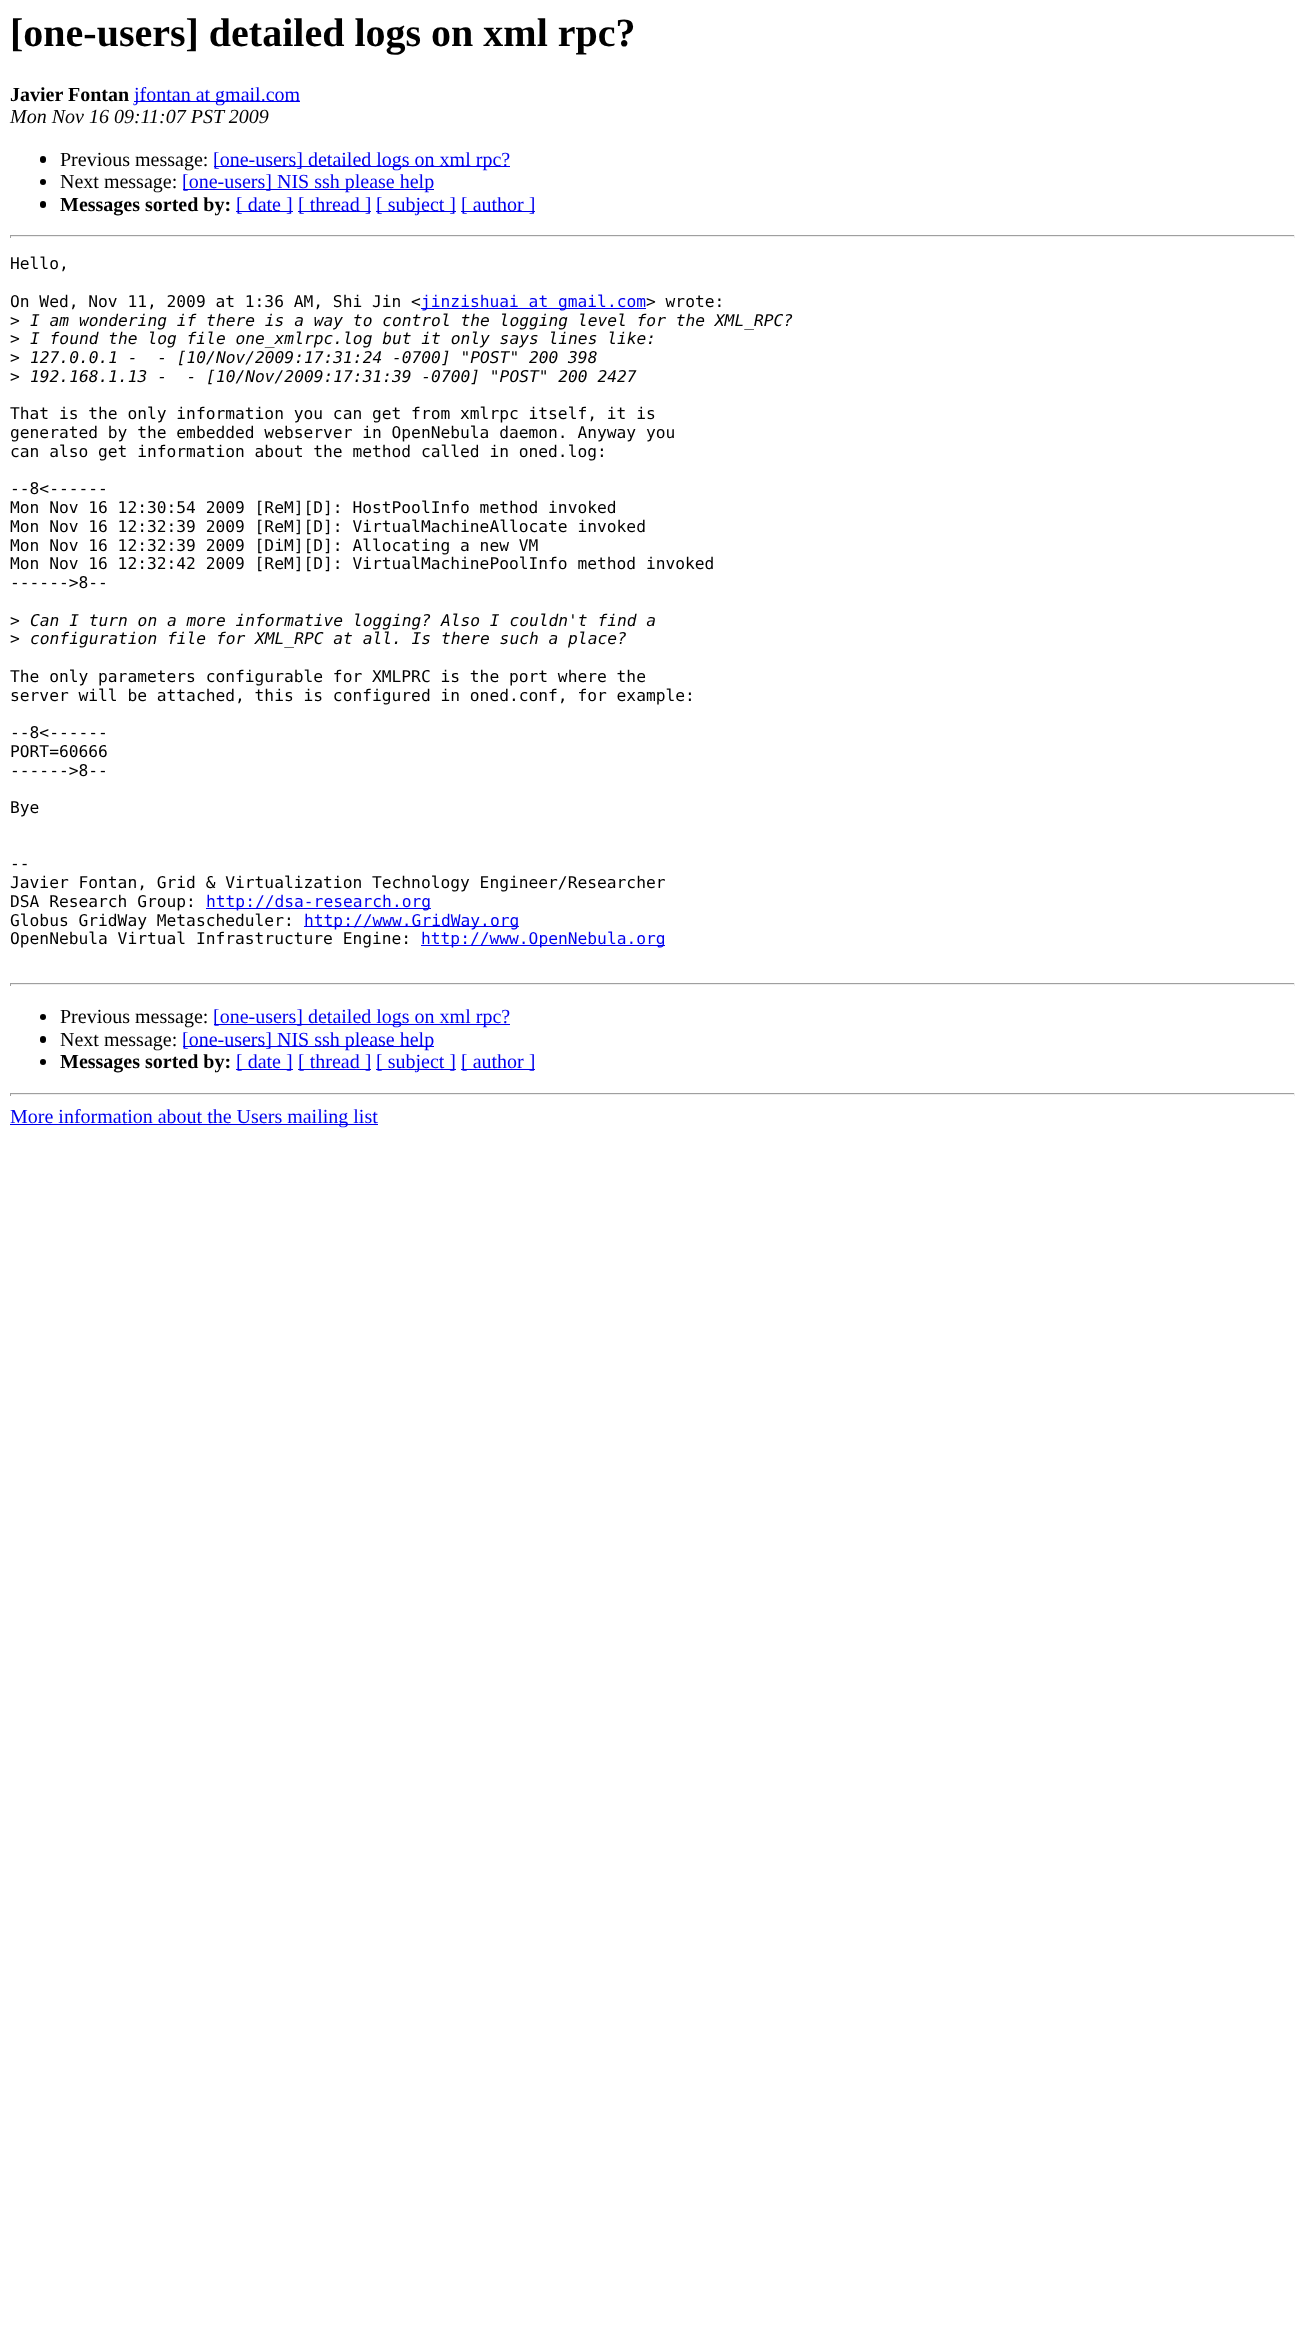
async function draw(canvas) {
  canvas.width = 1305
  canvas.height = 2331
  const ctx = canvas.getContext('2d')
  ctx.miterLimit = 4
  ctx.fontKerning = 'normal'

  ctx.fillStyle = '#fff'
  ctx.fillRect(0, 0, 1305, 2331)
  ctx.font = 'bold 40px Liberation Serif'
  ctx.fillStyle = '#000'
  ctx.fillText('[one-users] detailed logs on xml rpc?', 10, 46)
  ctx.font = 'bold 20px Liberation Serif'
  ctx.fillText('Javier Fontan', 10, 101)
  ctx.fillStyle = '#00e'
  ctx.fillRect(134, 101, 166, 1)
  ctx.font = '20px Liberation Serif'
  ctx.fillText('jfontan at gmail.com', 134, 101)
  ctx.font = 'italic 20px Liberation Serif'
  ctx.fillStyle = '#000'
  ctx.fillText('Mon Nov 16 09:11:07 PST 2009', 10, 123)
  ctx.beginPath()
  ctx.roundRect(40, 156, 6, 7, 3)
  ctx.fill()
  ctx.font = '20px Liberation Serif'
  ctx.fillText('Previous message:', 60, 166)
  ctx.fillStyle = '#00e'
  ctx.fillRect(214, 166, 296, 1)
  ctx.fillText('[one-users] detailed logs on xml rpc?', 213, 166)
  ctx.fillStyle = '#000'
  ctx.beginPath()
  ctx.arc(43, 182, 3, 0, 2 * Math.PI)
  ctx.fill()
  ctx.fillText('Next message:', 60, 188)
  ctx.fillStyle = '#00e'
  ctx.fillRect(183, 189, 251, 1)
  ctx.fillText('[one-users] NIS ssh please help', 182, 188)
  ctx.fillStyle = '#000'
  ctx.beginPath()
  ctx.roundRect(40, 201, 6, 7, 3)
  ctx.fill()
  ctx.font = 'bold 20px Liberation Serif'
  ctx.fillText('Messages sorted by:', 60, 211)
  ctx.fillStyle = '#00e'
  ctx.fillRect(236, 211, 57, 1)
  ctx.font = '20px Liberation Serif'
  ctx.fillText('[ date ]', 236, 211)
  ctx.fillRect(298, 211, 73, 1)
  ctx.fillText('[ thread ]', 298, 211)
  ctx.fillRect(376, 211, 80, 1)
  ctx.fillText('[ subject ]', 376, 211)
  ctx.fillRect(461, 211, 74, 1)
  ctx.fillText('[ author ]', 461, 211)
  ctx.fillStyle = '#9f9f9f'
  ctx.fillRect(10, 235, 1285, 1)
  ctx.fillStyle = '#eee'
  ctx.fillRect(1294, 235, 1, 3)
  ctx.fillRect(10, 236, 1285, 1)
  ctx.fillStyle = '#9f9f9f'
  ctx.fillRect(10, 235, 1, 3)
  ctx.font = '16.25px DejaVu Sans Mono'
  ctx.fillStyle = '#000'
  ctx.fillText('Hello,', 10, 269)
  ctx.fillText('On Wed, Nov 11, 2009 at 1:36 AM, Shi Jin <', 10, 307)
  ctx.fillStyle = '#00e'
  ctx.fillRect(421, 308, 225, 1)
  ctx.fillText('jinzishuai at gmail.com', 421, 307)
  ctx.fillStyle = '#000'
  ctx.fillText('> wrote:', 646, 307)
  ctx.fillText('>', 10, 326)
  ctx.font = 'italic 16.25px DejaVu Sans Mono'
  ctx.fillText('I am wondering if there is a way to control the logging level for the XML_RPC?', 30, 326)
  ctx.font = '16.25px DejaVu Sans Mono'
  ctx.fillText('>', 10, 344)
  ctx.font = 'italic 16.25px DejaVu Sans Mono'
  ctx.fillText('I found the log file one_xmlrpc.log but it only says lines like:', 30, 344)
  ctx.font = '16.25px DejaVu Sans Mono'
  ctx.fillText('>', 10, 363)
  ctx.font = 'italic 16.25px DejaVu Sans Mono'
  ctx.fillText('127.0.0.1 -  - [10/Nov/2009:17:31:24 -0700] "POST" 200 398', 30, 363)
  ctx.font = '16.25px DejaVu Sans Mono'
  ctx.fillText('>', 10, 382)
  ctx.font = 'italic 16.25px DejaVu Sans Mono'
  ctx.fillText('192.168.1.13 -  - [10/Nov/2009:17:31:39 -0700] "POST" 200 2427', 30, 382)
  ctx.font = '16.25px DejaVu Sans Mono'
  ctx.fillText('That is the only information you can get from xmlrpc itself, it is', 10, 419)
  ctx.fillText('generated by the embedded webserver in OpenNebula daemon. Anyway you', 10, 438)
  ctx.fillText('can also get information about the method called in oned.log:', 10, 457)
  ctx.fillText('--8<------', 10, 494)
  ctx.fillText('Mon Nov 16 12:30:54 2009 [ReM][D]: HostPoolInfo method invoked', 10, 513)
  ctx.fillText('Mon Nov 16 12:32:39 2009 [ReM][D]: VirtualMachineAllocate invoked', 10, 532)
  ctx.fillText('Mon Nov 16 12:32:39 2009 [DiM][D]: Allocating a new VM', 10, 551)
  ctx.fillText('Mon Nov 16 12:32:42 2009 [ReM][D]: VirtualMachinePoolInfo method invoked', 10, 569)
  ctx.fillText('------>8--', 10, 588)
  ctx.fillText('>', 10, 626)
  ctx.font = 'italic 16.25px DejaVu Sans Mono'
  ctx.fillText('Can I turn on a more informative logging? Also I couldn\'t find a', 30, 626)
  ctx.font = '16.25px DejaVu Sans Mono'
  ctx.fillText('>', 10, 644)
  ctx.font = 'italic 16.25px DejaVu Sans Mono'
  ctx.fillText('configuration file for XML_RPC at all. Is there such a place?', 30, 644)
  ctx.font = '16.25px DejaVu Sans Mono'
  ctx.fillText('The only parameters configurable for XMLPRC is the port where the', 10, 682)
  ctx.fillText('server will be attached, this is configured in oned.conf, for example:', 10, 701)
  ctx.fillText('--8<------', 10, 738)
  ctx.fillText('PORT=60666', 10, 757)
  ctx.fillText('------>8--', 10, 776)
  ctx.fillText('Bye', 10, 813)
  ctx.fillText('--', 10, 869)
  ctx.fillText('Javier Fontan, Grid & Virtualization Technology Engineer/Researcher', 10, 888)
  ctx.fillText('DSA Research Group:', 10, 907)
  ctx.fillStyle = '#00e'
  ctx.fillRect(206, 908, 225, 1)
  ctx.fillText('http://dsa-research.org', 206, 907)
  ctx.fillStyle = '#000'
  ctx.fillText('Globus GridWay Metascheduler:', 10, 926)
  ctx.fillStyle = '#00e'
  ctx.fillRect(304, 926, 215, 1)
  ctx.fillText('http://www.GridWay.org', 304, 926)
  ctx.fillStyle = '#000'
  ctx.fillText('OpenNebula Virtual Infrastructure Engine:', 10, 944)
  ctx.fillStyle = '#00e'
  ctx.fillRect(421, 945, 244, 1)
  ctx.fillText('http://www.OpenNebula.org', 421, 944)
  ctx.fillStyle = '#9f9f9f'
  ctx.fillRect(10, 983, 1285, 1)
  ctx.fillStyle = '#eee'
  ctx.fillRect(1294, 983, 1, 3)
  ctx.fillRect(10, 984, 1285, 1)
  ctx.fillStyle = '#9f9f9f'
  ctx.fillRect(10, 983, 1, 3)
  ctx.fillStyle = '#000'
  ctx.beginPath()
  ctx.arc(43, 1017, 3, 0, 2 * Math.PI)
  ctx.fill()
  ctx.font = '20px Liberation Serif'
  ctx.fillText('Previous message:', 60, 1023)
  ctx.fillStyle = '#00e'
  ctx.fillRect(214, 1024, 296, 1)
  ctx.fillText('[one-users] detailed logs on xml rpc?', 213, 1023)
  ctx.fillStyle = '#000'
  ctx.beginPath()
  ctx.roundRect(40, 1036, 6, 7, 3)
  ctx.fill()
  ctx.fillText('Next message:', 60, 1046)
  ctx.fillStyle = '#00e'
  ctx.fillRect(183, 1046, 251, 1)
  ctx.fillText('[one-users] NIS ssh please help', 182, 1046)
  ctx.fillStyle = '#000'
  ctx.beginPath()
  ctx.arc(43, 1062, 3, 0, 2 * Math.PI)
  ctx.fill()
  ctx.font = 'bold 20px Liberation Serif'
  ctx.fillText('Messages sorted by:', 60, 1068)
  ctx.fillStyle = '#00e'
  ctx.fillRect(236, 1069, 57, 1)
  ctx.font = '20px Liberation Serif'
  ctx.fillText('[ date ]', 236, 1068)
  ctx.fillRect(298, 1069, 73, 1)
  ctx.fillText('[ thread ]', 298, 1068)
  ctx.fillRect(376, 1069, 80, 1)
  ctx.fillText('[ subject ]', 376, 1068)
  ctx.fillRect(461, 1069, 74, 1)
  ctx.fillText('[ author ]', 461, 1068)
  ctx.fillStyle = '#9f9f9f'
  ctx.fillRect(10, 1093, 1285, 1)
  ctx.fillStyle = '#eee'
  ctx.fillRect(1294, 1093, 1, 3)
  ctx.fillRect(10, 1094, 1285, 1)
  ctx.fillStyle = '#9f9f9f'
  ctx.fillRect(10, 1093, 1, 3)
  ctx.fillStyle = '#00e'
  ctx.fillRect(10, 1124, 368, 1)
  ctx.fillText('More information about the Users mailing list', 10, 1123)
}

draw(document.querySelector('canvas'))
